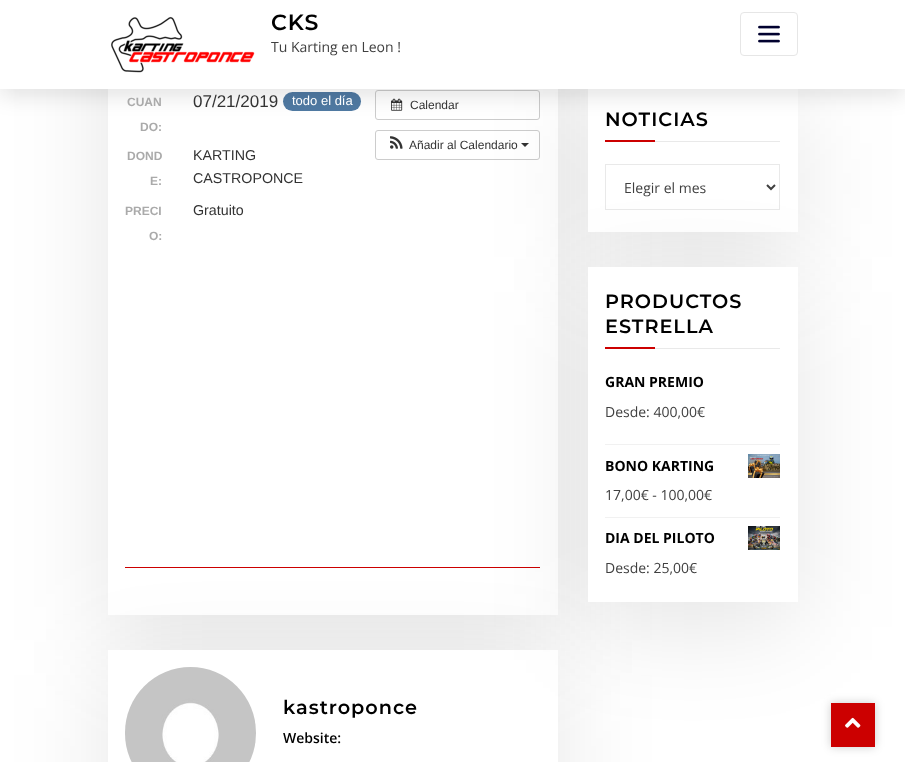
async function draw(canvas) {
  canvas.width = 905
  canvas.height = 762
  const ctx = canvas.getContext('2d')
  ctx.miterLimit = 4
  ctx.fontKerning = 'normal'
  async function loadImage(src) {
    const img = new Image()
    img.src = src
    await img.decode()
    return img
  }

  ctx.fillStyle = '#fff'
  ctx.fillRect(0, 0, 905, 762)
  ctx.save()
  ctx.beginPath()
  ctx.moveTo(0, 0)
  ctx.lineTo(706, 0)
  ctx.lineTo(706, 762)
  ctx.lineTo(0, 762)
  ctx.closePath()
  ctx.moveTo(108, -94)
  ctx.lineTo(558, -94)
  ctx.lineTo(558, 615)
  ctx.lineTo(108, 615)
  ctx.closePath()
  ctx.clip('evenodd')
  ctx.fillStyle = '#0000001a'
  ctx.filter = 'blur(49px)'
  ctx.beginPath()
  ctx.rect(108, -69, 450, 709)
  ctx.fill()
  ctx.filter = 'none'
  ctx.restore()
  ctx.fillStyle = '#507aa3'
  ctx.beginPath()
  ctx.roundRect(283, 92, 78, 19, 9.5)
  ctx.fill()
  ctx.beginPath()
  ctx.roundRect(375.5, 90.5, 164, 29, 2.5)
  ctx.strokeStyle = '#ccc'
  ctx.stroke()
  ctx.drawImage(await loadImage('image2.png'), 391, 98, 12, 13)
  ctx.beginPath()
  ctx.roundRect(375.5, 130.5, 164, 29, 2.5)
  ctx.stroke()
  ctx.fillStyle = '#333'
  ctx.beginPath()
  ctx.moveTo(521, 143)
  ctx.lineTo(529, 143)
  ctx.lineTo(525, 147)
  ctx.closePath()
  ctx.fill()
  ctx.fillStyle = '#0000001a'
  ctx.filter = 'blur(49px)'
  ctx.beginPath()
  ctx.rect(588, 110, 210, 147)
  ctx.fill()
  ctx.filter = 'none'
  ctx.fillStyle = '#fff'
  ctx.fillRect(588, 89, 210, 143)
  ctx.fillStyle = '#0000001a'
  ctx.filter = 'blur(10px)'
  ctx.beginPath()
  ctx.rect(0, 8, 905, 89)
  ctx.fill()
  ctx.filter = 'none'
  ctx.fillStyle = '#fff'
  ctx.fillRect(0, 0, 905, 89)
  ctx.drawImage(await loadImage('image0.png'), 111, 16, 144, 57)
  ctx.letterSpacing = '1px'
  ctx.font = '600 22px Montserrat'
  ctx.fillStyle = '#000'
  ctx.fillText('CKS', 271, 30)
  ctx.letterSpacing = '0px'
  ctx.font = '14px Open Sans'
  ctx.fillStyle = '#404040'
  ctx.fillText('Tu Karting en Leon !', 271, 52)
  ctx.beginPath()
  ctx.roundRect(740.5, 12.5, 57, 43, 3.5)
  ctx.strokeStyle = '#e6e6e6'
  ctx.stroke()
  ctx.drawImage(await loadImage('image1.png'), 758, 25, 22, 18)
  ctx.font = 'bold 12px Liberation Sans'
  ctx.fillStyle = '#aaa'
  ctx.fillText('CUAN', 127, 106)
  ctx.fillText('DO:', 140, 131)
  ctx.font = '17px Liberation Sans'
  ctx.fillStyle = '#333'
  ctx.fillText('07/21/2019', 193, 107)
  ctx.font = '13px Liberation Sans'
  ctx.fillStyle = '#fff'
  ctx.fillText('todo el día', 292, 105)
  ctx.font = 'bold 12px Liberation Sans'
  ctx.fillStyle = '#aaa'
  ctx.fillText('DOND', 127, 160)
  ctx.fillText('E:', 150, 185)
  ctx.font = '14.25px Liberation Sans'
  ctx.fillStyle = '#333'
  ctx.fillText('KARTING', 193, 160)
  ctx.fillText('CASTROPONCE', 193, 183)
  ctx.font = 'bold 12px Liberation Sans'
  ctx.fillStyle = '#aaa'
  ctx.fillText('PRECI', 125, 215)
  ctx.fillText('O:', 149, 240)
  ctx.font = '14.25px Liberation Sans'
  ctx.fillStyle = '#333'
  ctx.fillText('Gratuito', 193, 215)
  ctx.font = '12px Liberation Sans'
  ctx.fillText('Calendar', 410, 109)
  ctx.drawImage(await loadImage('image3.png'), 390, 136, 13, 13)
  ctx.fillText('Añadir al Calendario', 409, 149)
  ctx.fillStyle = '#0000001a'
  ctx.filter = 'blur(49px)'
  ctx.beginPath()
  ctx.rect(108, 675, 450, 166)
  ctx.fill()
  ctx.filter = 'none'
  ctx.fillStyle = '#c00'
  ctx.fillRect(125, 567, 415, 1)
  ctx.fillStyle = '#fff'
  ctx.fillRect(108, 650, 450, 112)
  ctx.drawImage(await loadImage('image4.png'), 125, 667, 131, 95)
  ctx.letterSpacing = '1px'
  ctx.font = '600 19.25px Montserrat'
  ctx.fillStyle = '#000'
  ctx.fillText('kastroponce', 283, 714)
  ctx.letterSpacing = '0px'
  ctx.font = '600 14px Open Sans'
  ctx.fillText('Website:', 283, 743)
  ctx.fillStyle = '#e9e9e9'
  ctx.fillRect(655, 141, 125, 1)
  ctx.letterSpacing = '1px'
  ctx.font = '600 19.25px Montserrat'
  ctx.fillStyle = '#000'
  ctx.fillText('NOTICIAS', 605, 126)
  ctx.fillStyle = '#c00'
  ctx.fillRect(605, 140, 50, 2)
  ctx.strokeStyle = '#e9e9e9'
  ctx.strokeRect(605.5, 164.5, 174, 45)
  ctx.beginPath()
  ctx.moveTo(767, 185)
  ctx.lineTo(771, 189)
  ctx.lineTo(775, 185)
  ctx.strokeStyle = '#404040'
  ctx.lineWidth = 2
  ctx.stroke()
  ctx.fillStyle = '#0000001a'
  ctx.filter = 'blur(49px)'
  ctx.beginPath()
  ctx.rect(588, 292, 210, 335)
  ctx.fill()
  ctx.filter = 'none'
  ctx.letterSpacing = '0px'
  ctx.font = '14px Open Sans'
  ctx.fillStyle = '#404040'
  ctx.fillText('Elegir el mes', 624, 193)
  ctx.fillStyle = '#fff'
  ctx.fillRect(588, 267, 210, 335)
  ctx.fillStyle = '#e9e9e9'
  ctx.fillRect(655, 348, 125, 1)
  ctx.letterSpacing = '1px'
  ctx.font = '600 19.25px Montserrat'
  ctx.fillStyle = '#000'
  ctx.fillText('PRODUCTOS', 605, 308)
  ctx.fillText('ESTRELLA', 605, 333)
  ctx.fillStyle = '#c00'
  ctx.fillRect(605, 347, 50, 2)
  ctx.fillStyle = '#f1f1f1'
  ctx.fillRect(605, 444, 175, 1)
  ctx.letterSpacing = '0px'
  ctx.font = 'bold 14px Open Sans'
  ctx.fillStyle = '#000'
  ctx.fillText('GRAN PREMIO', 605, 387)
  ctx.font = '14px Open Sans'
  ctx.fillStyle = '#404040'
  ctx.fillText('Desde: 400,00€', 605, 417)
  ctx.fillStyle = '#f1f1f1'
  ctx.fillRect(605, 517, 175, 1)
  ctx.font = 'bold 14px Open Sans'
  ctx.fillStyle = '#000'
  ctx.fillText('BONO KARTING', 605, 471)
  ctx.drawImage(await loadImage('image5.png'), 748, 454, 32, 24)
  ctx.font = '14px Open Sans'
  ctx.fillStyle = '#404040'
  ctx.fillText('17,00€ - 100,00€', 605, 500)
  ctx.font = 'bold 14px Open Sans'
  ctx.fillStyle = '#000'
  ctx.fillText('DIA DEL PILOTO', 605, 543)
  ctx.drawImage(await loadImage('image6.png'), 748, 526, 32, 24)
  ctx.font = '14px Open Sans'
  ctx.fillStyle = '#404040'
  ctx.fillText('Desde: 25,00€', 605, 573)
  ctx.fillStyle = '#00000033'
  ctx.filter = 'blur(5px)'
  ctx.beginPath()
  ctx.rect(831, 703, 44, 44)
  ctx.fill()
  ctx.filter = 'none'
  ctx.fillStyle = '#c00'
  ctx.fillRect(831, 703, 44, 44)
  ctx.drawImage(await loadImage('image7.png'), 845, 717, 16, 11)
}

draw(document.querySelector('canvas'))
